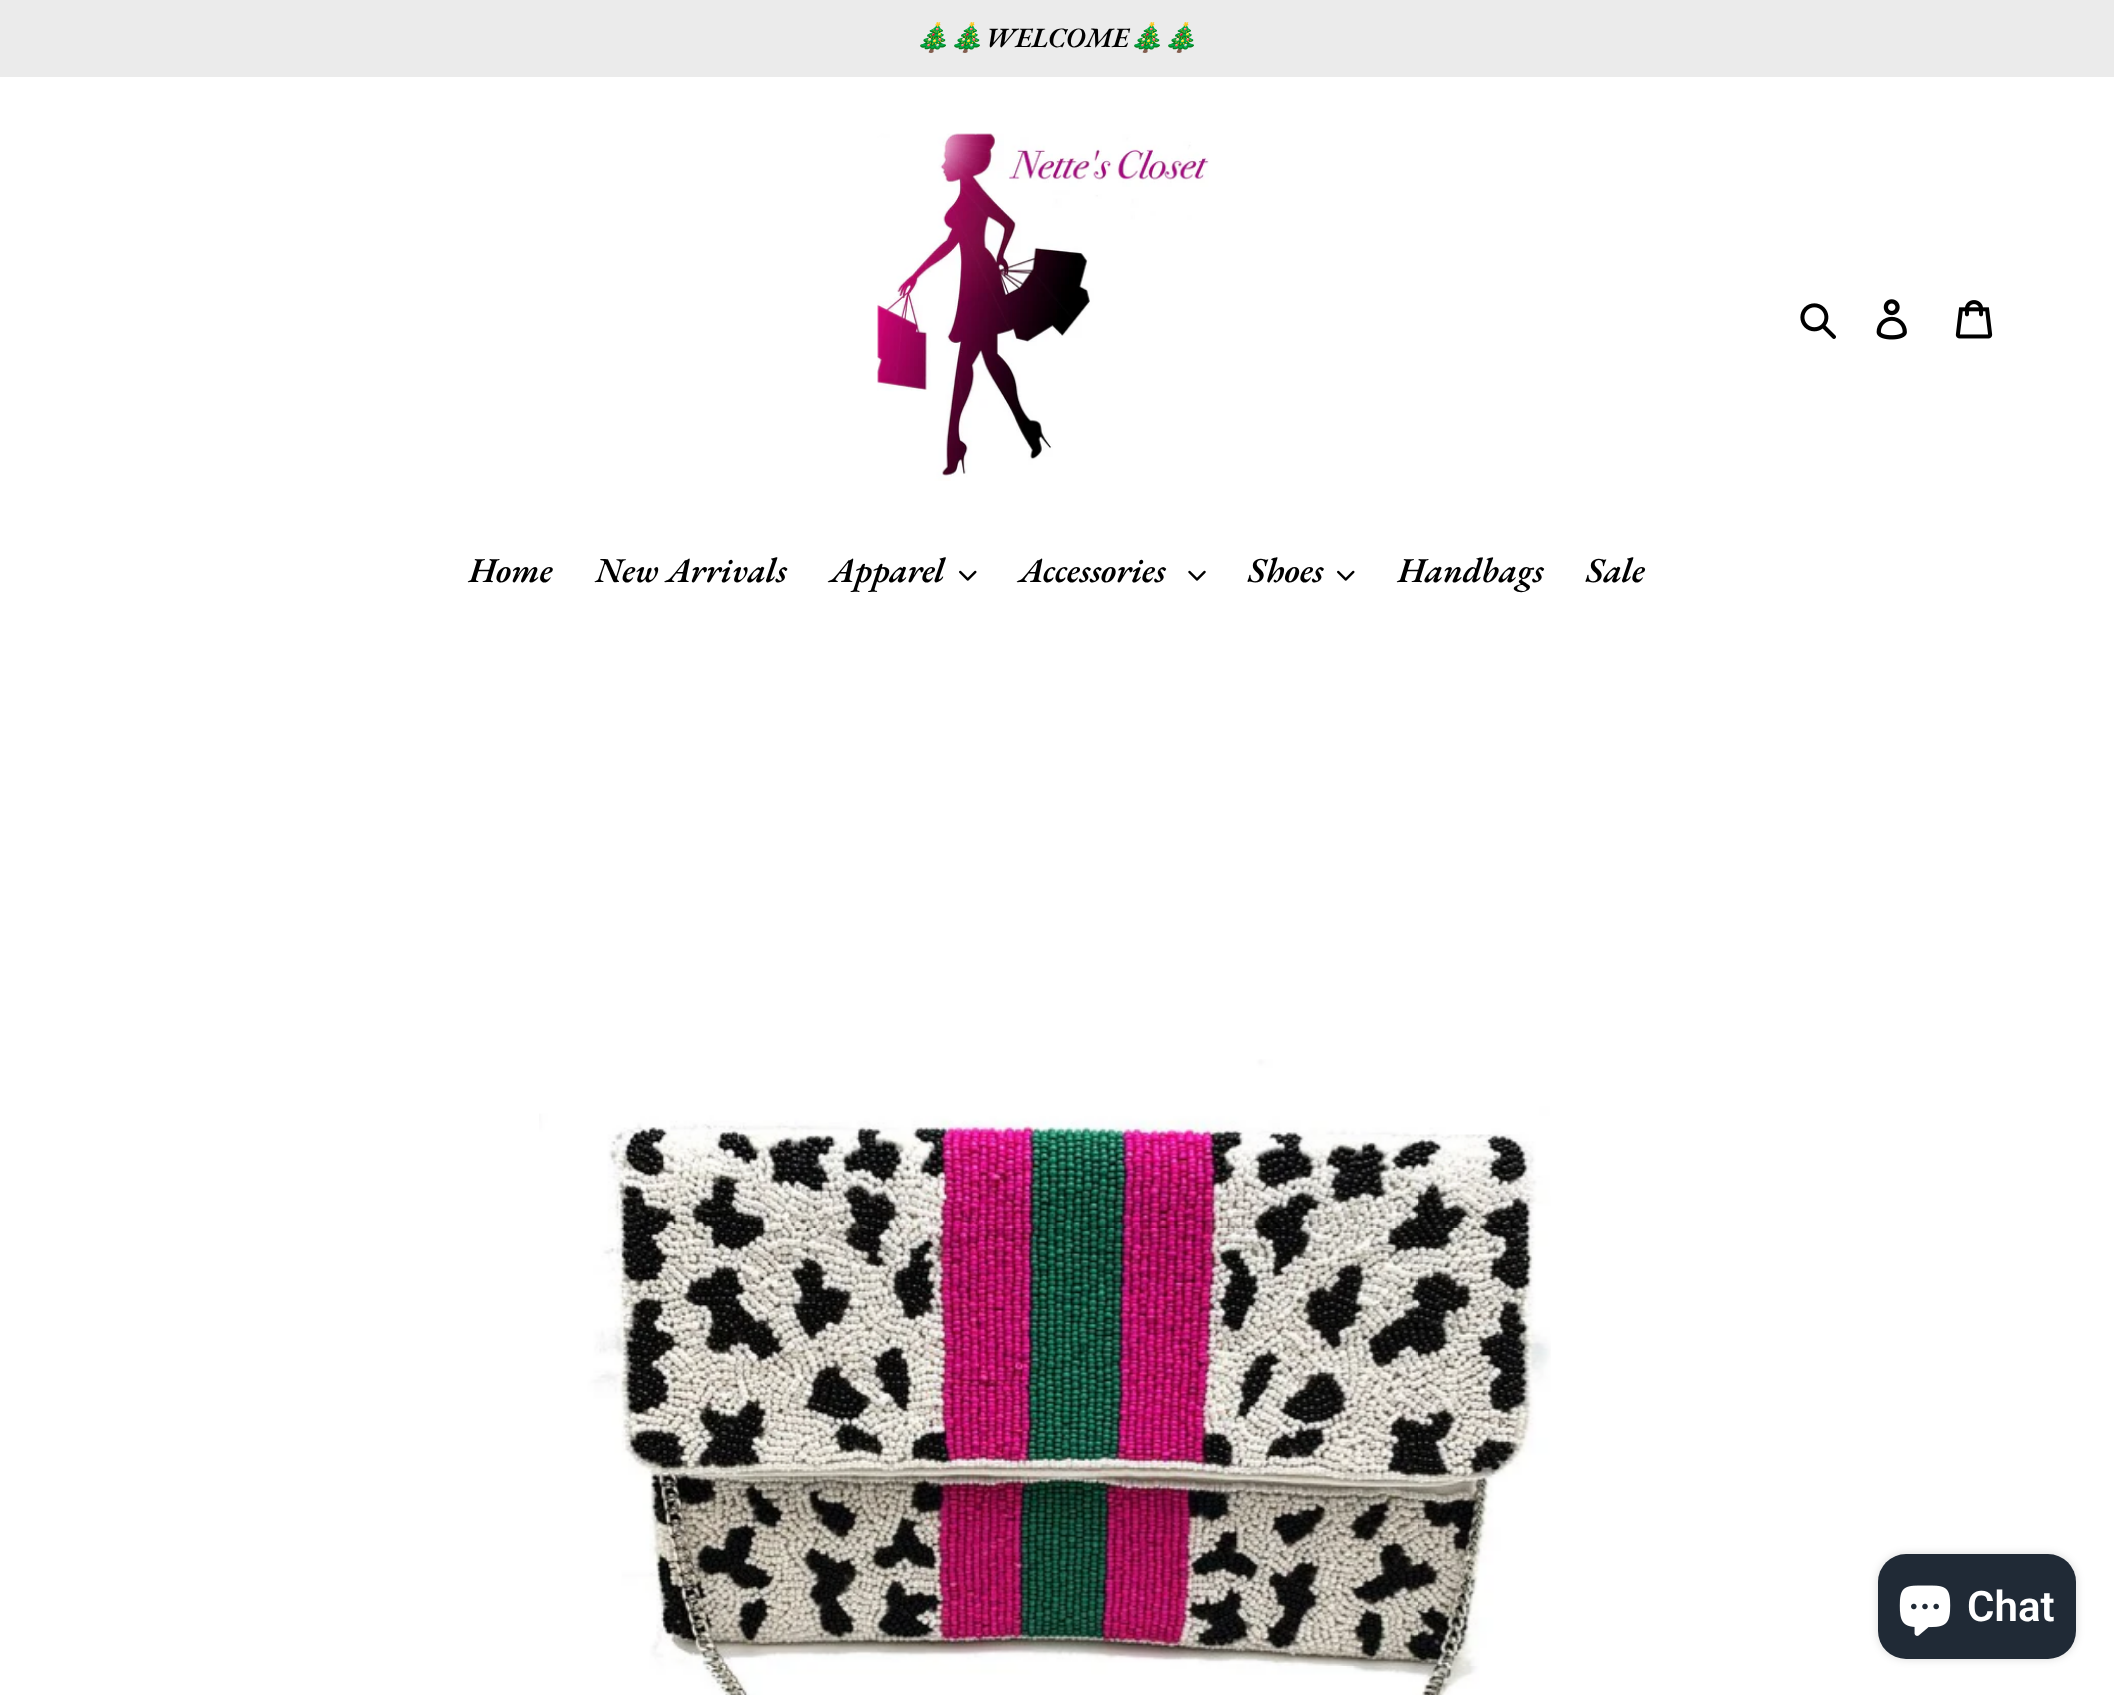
async function draw(canvas) {
  canvas.width = 2114
  canvas.height = 1695
  const ctx = canvas.getContext('2d')
  ctx.miterLimit = 4
  ctx.fontKerning = 'normal'
  async function loadImage(src) {
    const img = new Image()
    img.src = src
    await img.decode()
    return img
  }

  ctx.fillStyle = '#fff'
  ctx.fillRect(0, 0, 2114, 1695)
  ctx.fillStyle = '#ebebeb'
  ctx.fillRect(0, 0, 2114, 77)
  ctx.font = 'italic bold 28px Noto Color Emoji'
  ctx.fillStyle = '#000'
  ctx.fillText('🎄🎄', 915, 47)
  ctx.font = 'italic 600 28px EB Garamond'
  ctx.fillText('WELCOME', 985, 47)
  ctx.font = 'italic bold 28px Noto Color Emoji'
  ctx.fillText('🎄🎄', 1129, 47)
  ctx.drawImage(await loadImage('image0.png'), 877, 133, 332, 348)
  ctx.drawImage(await loadImage('image1.png'), 1800, 303, 36, 36)
  ctx.drawImage(await loadImage('image2.png'), 1876, 299, 31, 41)
  ctx.drawImage(await loadImage('image3.png'), 1955, 300, 38, 39)
  ctx.font = 'italic 600 35px EB Garamond'
  ctx.fillText('Home', 469, 582)
  ctx.fillText('New Arrivals', 595, 582)
  ctx.fillText('Apparel', 830, 582)
  ctx.drawImage(await loadImage('image4.png'), 959, 570, 18, 11)
  ctx.fillText('Accessories', 1019, 582)
  ctx.drawImage(await loadImage('image5.png'), 1188, 570, 18, 11)
  ctx.fillText('Shoes', 1248, 582)
  ctx.drawImage(await loadImage('image4.png'), 1337, 570, 18, 11)
  ctx.fillText('Handbags', 1398, 582)
  ctx.fillText('Sale', 1586, 582)
  ctx.drawImage(await loadImage('image6.png'), 539, 1059, 1012, 636)
  ctx.fillStyle = '#00000026'
  ctx.filter = 'blur(4.5px)'
  ctx.beginPath()
  ctx.roundRect(1878, 1554, 198, 105, 28)
  ctx.fill()
  ctx.filter = 'none'
  ctx.fillStyle = '#202a36'
  ctx.beginPath()
  ctx.roundRect(1878, 1554, 198, 105, 28)
  ctx.fill()
  ctx.drawImage(await loadImage('image7.png'), 1899, 1585, 52, 51)
  ctx.font = '600 42px Roboto'
  ctx.fillStyle = '#fff'
  ctx.fillText('Chat', 1967, 1621)
}

draw(document.querySelector('canvas'))
